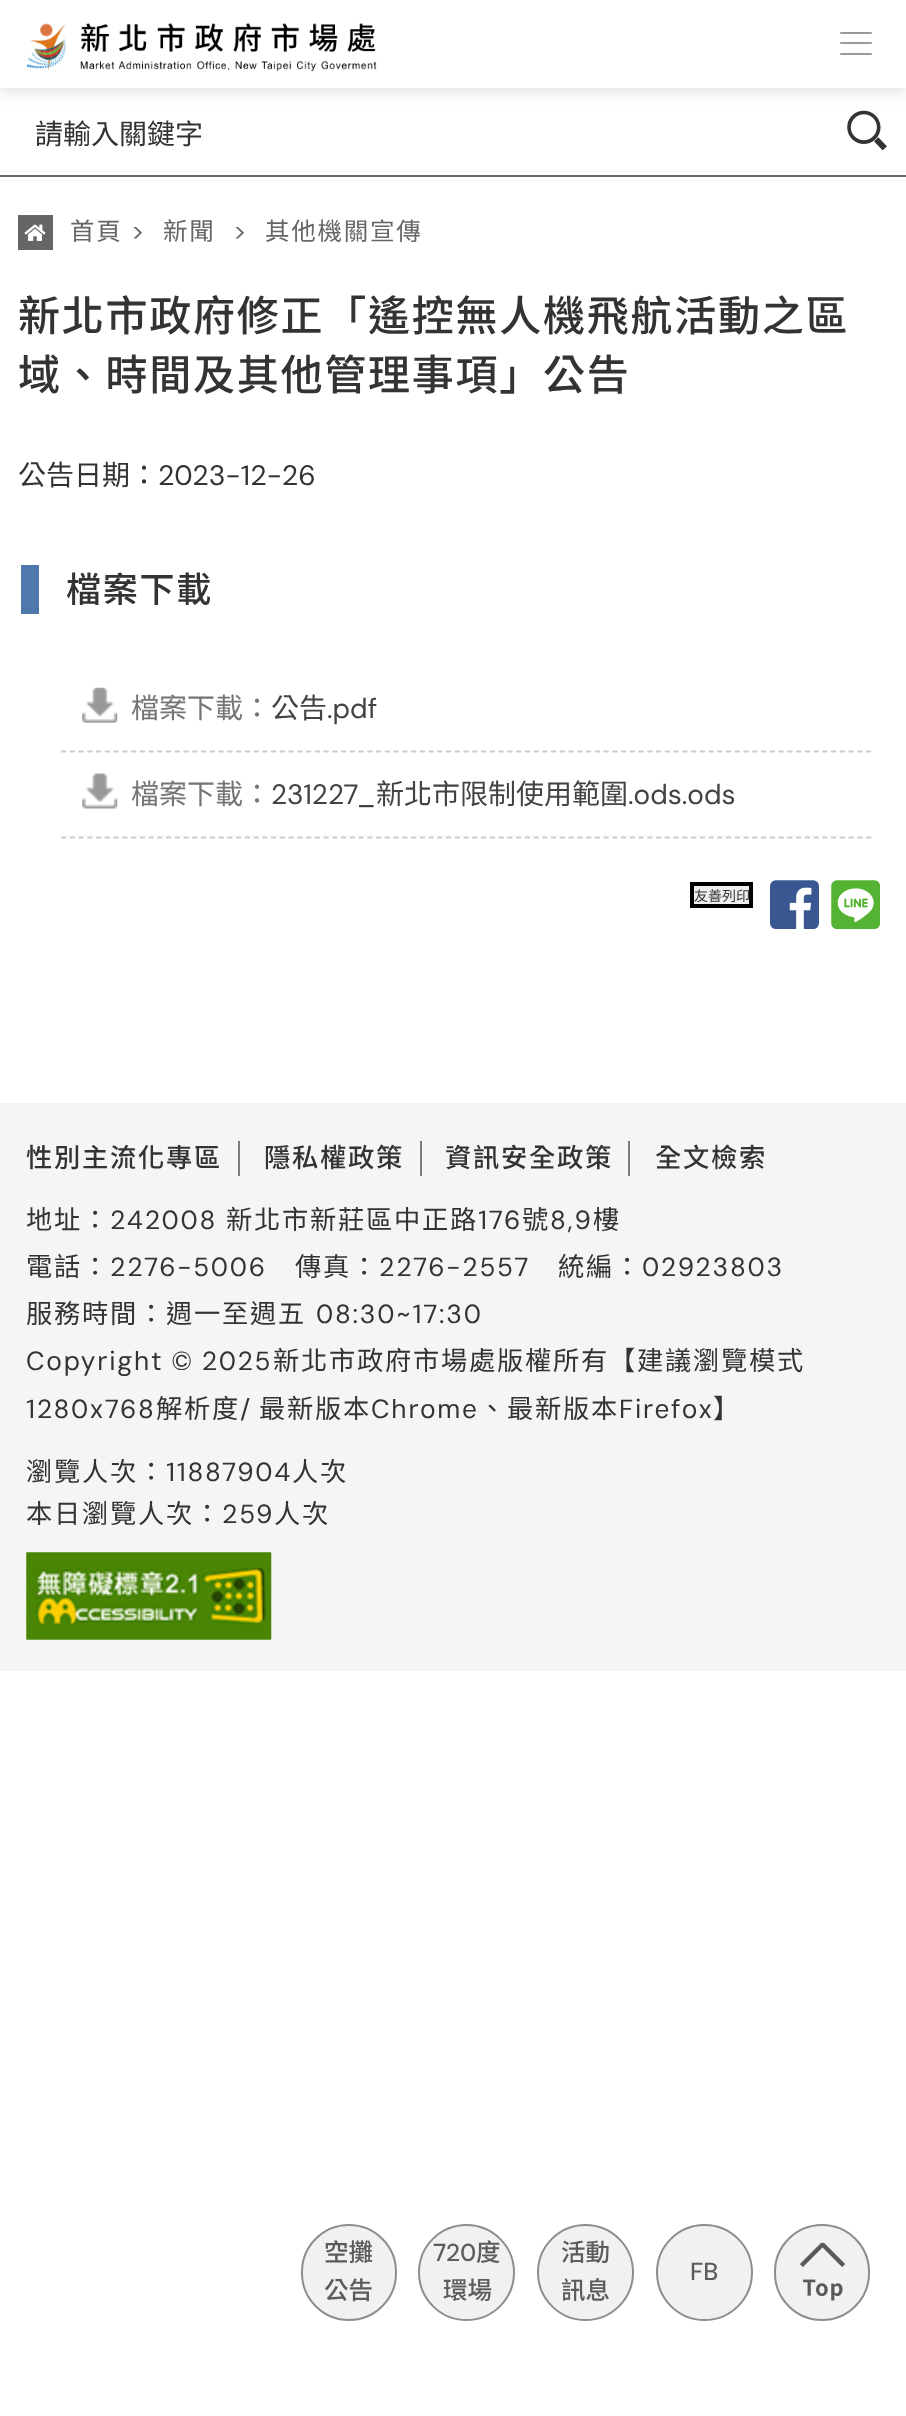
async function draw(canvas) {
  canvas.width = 906
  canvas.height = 2416
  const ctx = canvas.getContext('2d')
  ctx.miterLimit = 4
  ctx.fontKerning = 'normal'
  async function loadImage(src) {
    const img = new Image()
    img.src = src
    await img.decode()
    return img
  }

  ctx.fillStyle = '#fff'
  ctx.fillRect(0, 0, 906, 2416)
  ctx.fillStyle = '#8c8c8c66'
  ctx.filter = 'blur(9px)'
  ctx.beginPath()
  ctx.rect(0, 0, 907, 88)
  ctx.fill()
  ctx.filter = 'none'
  ctx.fillStyle = '#fff'
  ctx.fillRect(0, 0, 906, 88)
  ctx.drawImage(await loadImage('image0.png'), 26, 23, 351, 48)
  ctx.fillStyle = '#999'
  ctx.beginPath()
  ctx.roundRect(840, 32, 32, 2, 1)
  ctx.fill()
  ctx.beginPath()
  ctx.roundRect(840, 42, 32, 2, 1)
  ctx.fill()
  ctx.beginPath()
  ctx.roundRect(840, 53, 32, 2, 1)
  ctx.fill()
  ctx.font = '28px Noto Sans TC'
  ctx.fillStyle = '#333'
  ctx.fillText('請輸入關鍵字', 35, 144)
  ctx.drawImage(await loadImage('image1.png'), 847, 110, 40, 41)
  ctx.fillStyle = '#666'
  ctx.fillRect(0, 175, 906, 2)
  ctx.drawImage(await loadImage('image2.png'), 18, 215, 35, 35)
  ctx.letterSpacing = '1.75px'
  ctx.font = '24.5px Noto Sans TC'
  ctx.fillText('首頁', 70, 240)
  ctx.font = '24.5px DM Sans'
  ctx.fillText('>', 131, 240)
  ctx.font = '24.5px Noto Sans TC'
  ctx.fillText('新聞', 163, 240)
  ctx.font = '24.5px DM Sans'
  ctx.fillText('>', 233, 240)
  ctx.font = '24.5px Noto Sans TC'
  ctx.fillText('其他機關宣傳', 265, 240)
  ctx.font = '500 42px Noto Sans TC'
  ctx.fillStyle = '#333'
  ctx.fillText('新北市政府修正「遙控無人機飛航活動之區', 18, 331)
  ctx.fillText('域、時間及其他管理事項」公告', 18, 390)
  ctx.letterSpacing = '0px'
  ctx.font = '28px Noto Sans TC'
  ctx.fillText('公告日期：', 18, 485)
  ctx.font = '28px DM Sans'
  ctx.fillText('2023-12-26', 158, 485)
  ctx.fillStyle = '#5178ad'
  ctx.fillRect(21, 565, 18, 49)
  ctx.letterSpacing = '1.75px'
  ctx.font = '500 35px Noto Sans TC'
  ctx.fillStyle = '#333'
  ctx.fillText('檔案下載', 66, 602)
  ctx.drawImage(await loadImage('image3.png'), 82, 687, 36, 36)
  ctx.beginPath()
  ctx.moveTo(61, 751.5)
  ctx.lineTo(871.5, 751.5)
  ctx.strokeStyle = '#ccc'
  ctx.lineWidth = 1.8
  ctx.setLineDash([5.25, 3.5])
  ctx.stroke()
  ctx.letterSpacing = '0px'
  ctx.font = '28px Noto Sans TC'
  ctx.fillStyle = '#757575'
  ctx.fillText('檔案下載：', 131, 718)
  ctx.fillStyle = '#434343'
  ctx.fillText('公告', 271, 718)
  ctx.font = '28px "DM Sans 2"'
  ctx.fillText('.pdf', 327, 718)
  ctx.drawImage(await loadImage('image4.png'), 82, 773, 36, 36)
  ctx.beginPath()
  ctx.moveTo(61, 837.5)
  ctx.lineTo(871.5, 837.5)
  ctx.stroke()
  ctx.font = '28px Noto Sans TC'
  ctx.fillStyle = '#757575'
  ctx.fillText('檔案下載：', 131, 804)
  ctx.font = '28px "DM Sans 2"'
  ctx.fillStyle = '#434343'
  ctx.fillText('231227_', 271, 804)
  ctx.font = '28px Noto Sans TC'
  ctx.fillText('新北市限制使用範圍', 376, 804)
  ctx.font = '28px "DM Sans 2"'
  ctx.fillText('.ods.ods', 628, 804)
  ctx.fillStyle = '#efefef'
  ctx.beginPath()
  ctx.rect(692, 884, 59, 22)
  ctx.fill()
  ctx.strokeStyle = '#000'
  ctx.lineWidth = 4
  ctx.setLineDash([])
  ctx.stroke()
  ctx.font = '14px Noto Sans TC'
  ctx.fillStyle = '#333'
  ctx.fillText('友善列印', 694, 901)
  ctx.drawImage(await loadImage('image5.png'), 770, 880, 49, 49)
  ctx.drawImage(await loadImage('image6.png'), 831, 880, 49, 49)
  ctx.fillStyle = '#f5f5f5'
  ctx.fillRect(0, 1103, 906, 568)
  ctx.letterSpacing = '1.75px'
  ctx.font = '500 26.25px Noto Sans TC'
  ctx.fillStyle = '#333'
  ctx.fillText('性別主流化專區', 26, 1167)
  ctx.fillStyle = '#7b7b7b'
  ctx.fillRect(238, 1141, 2, 35)
  ctx.fillStyle = '#333'
  ctx.fillText('隱私權政策', 264, 1167)
  ctx.fillStyle = '#7b7b7b'
  ctx.fillRect(420, 1141, 2, 35)
  ctx.fillStyle = '#333'
  ctx.fillText('資訊安全政策', 445, 1167)
  ctx.fillStyle = '#7b7b7b'
  ctx.fillRect(628, 1141, 2, 35)
  ctx.fillStyle = '#333'
  ctx.fillText('全文檢索', 655, 1167)
  ctx.font = '26.25px Noto Sans TC'
  ctx.fillText('地址：', 26, 1229)
  ctx.font = '26.25px DM Sans'
  ctx.fillText('242008', 110, 1229)
  ctx.font = '26.25px Noto Sans TC'
  ctx.fillText('新北市新莊區中正路', 226, 1229)
  ctx.font = '26.25px DM Sans'
  ctx.fillText('176', 478, 1229)
  ctx.font = '26.25px Noto Sans TC'
  ctx.fillText('號', 522, 1229)
  ctx.font = '26.25px DM Sans'
  ctx.fillText('8,9', 550, 1229)
  ctx.font = '26.25px Noto Sans TC'
  ctx.fillText('樓', 593, 1229)
  ctx.fillText('電話：', 26, 1276)
  ctx.font = '26.25px DM Sans'
  ctx.fillText('2276-5006', 110, 1276)
  ctx.font = '26.25px Noto Sans TC'
  ctx.fillText('傳真：', 295, 1276)
  ctx.font = '26.25px DM Sans'
  ctx.fillText('2276-2557', 379, 1276)
  ctx.font = '26.25px Noto Sans TC'
  ctx.fillText('統編：', 558, 1276)
  ctx.font = '26.25px DM Sans'
  ctx.fillText('02923803', 642, 1276)
  ctx.font = '26.25px Noto Sans TC'
  ctx.fillText('服務時間：週一至週五', 26, 1323)
  ctx.font = '26.25px DM Sans'
  ctx.fillText('08:30~17:30', 316, 1323)
  ctx.wordSpacing = '-1px'
  ctx.fillText('Copyright © 2025', 26, 1370)
  ctx.wordSpacing = '0px'
  ctx.font = '26.25px Noto Sans TC'
  ctx.fillText('新北市政府市場處版權所有【建議瀏覽模式', 273, 1370)
  ctx.font = '26.25px DM Sans'
  ctx.fillText('1280x768', 26, 1418)
  ctx.font = '26.25px Noto Sans TC'
  ctx.fillText('解析度', 156, 1418)
  ctx.font = '26.25px DM Sans'
  ctx.fillText('/', 240, 1418)
  ctx.font = '26.25px Noto Sans TC'
  ctx.fillText('最新版本', 259, 1418)
  ctx.font = '26.25px DM Sans'
  ctx.fillText('Chrome', 371, 1418)
  ctx.font = '26.25px Noto Sans TC'
  ctx.fillText('、最新版本', 479, 1418)
  ctx.font = '26.25px DM Sans'
  ctx.fillText('Firefox', 619, 1418)
  ctx.font = '26.25px Noto Sans TC'
  ctx.fillText('】', 713, 1418)
  ctx.fillText('瀏覽人次：', 26, 1481)
  ctx.font = '26.25px DM Sans'
  ctx.fillText('11887904', 166, 1481)
  ctx.font = '26.25px Noto Sans TC'
  ctx.fillText('人次', 292, 1481)
  ctx.fillText('本日瀏覽人次：', 26, 1523)
  ctx.font = '26.25px DM Sans'
  ctx.fillText('259', 222, 1523)
  ctx.font = '26.25px Noto Sans TC'
  ctx.fillText('人次', 274, 1523)
  ctx.drawImage(await loadImage('image7.png'), 26, 1552, 246, 88)
  ctx.fillStyle = '#f1f1f1'
  ctx.beginPath()
  ctx.roundRect(302, 2225, 94, 95, 47)
  ctx.fill()
  ctx.strokeStyle = '#8d8d8d'
  ctx.lineWidth = 2
  ctx.stroke()
  ctx.letterSpacing = '0px'
  ctx.font = '500 24.5px Noto Sans TC'
  ctx.fillStyle = '#5c5c5c'
  ctx.fillText('空攤', 324, 2261)
  ctx.fillText('公告', 324, 2299)
  ctx.fillStyle = '#f1f1f1'
  ctx.beginPath()
  ctx.arc(466.5, 2272.5, 47.5, 0, 2 * Math.PI)
  ctx.fill()
  ctx.stroke()
  ctx.font = '500 24.5px DM Sans'
  ctx.fillStyle = '#5c5c5c'
  ctx.fillText('720', 433, 2261)
  ctx.font = '500 24.5px Noto Sans TC'
  ctx.fillText('度', 476, 2261)
  ctx.fillText('環場', 443, 2299)
  ctx.fillStyle = '#f1f1f1'
  ctx.beginPath()
  ctx.arc(585.5, 2272.5, 47.5, 0, 2 * Math.PI)
  ctx.fill()
  ctx.stroke()
  ctx.fillStyle = '#5c5c5c'
  ctx.fillText('活動', 561, 2261)
  ctx.fillText('訊息', 561, 2299)
  ctx.fillStyle = '#f1f1f1'
  ctx.beginPath()
  ctx.arc(704.5, 2272.5, 47.5, 0, 2 * Math.PI)
  ctx.fill()
  ctx.stroke()
  ctx.font = '500 24.5px "DM Sans 2"'
  ctx.fillStyle = '#5c5c5c'
  ctx.fillText('FB', 690, 2280)
  ctx.fillStyle = '#f1f1f1'
  ctx.beginPath()
  ctx.roundRect(774, 2224, 96, 97, 48)
  ctx.fill()
  ctx.drawImage(await loadImage('image8.png'), 800, 2242, 46, 59)
  ctx.beginPath()
  ctx.roundRect(775, 2225, 94, 95, 47)
  ctx.stroke()
}

draw(document.querySelector('canvas'))
